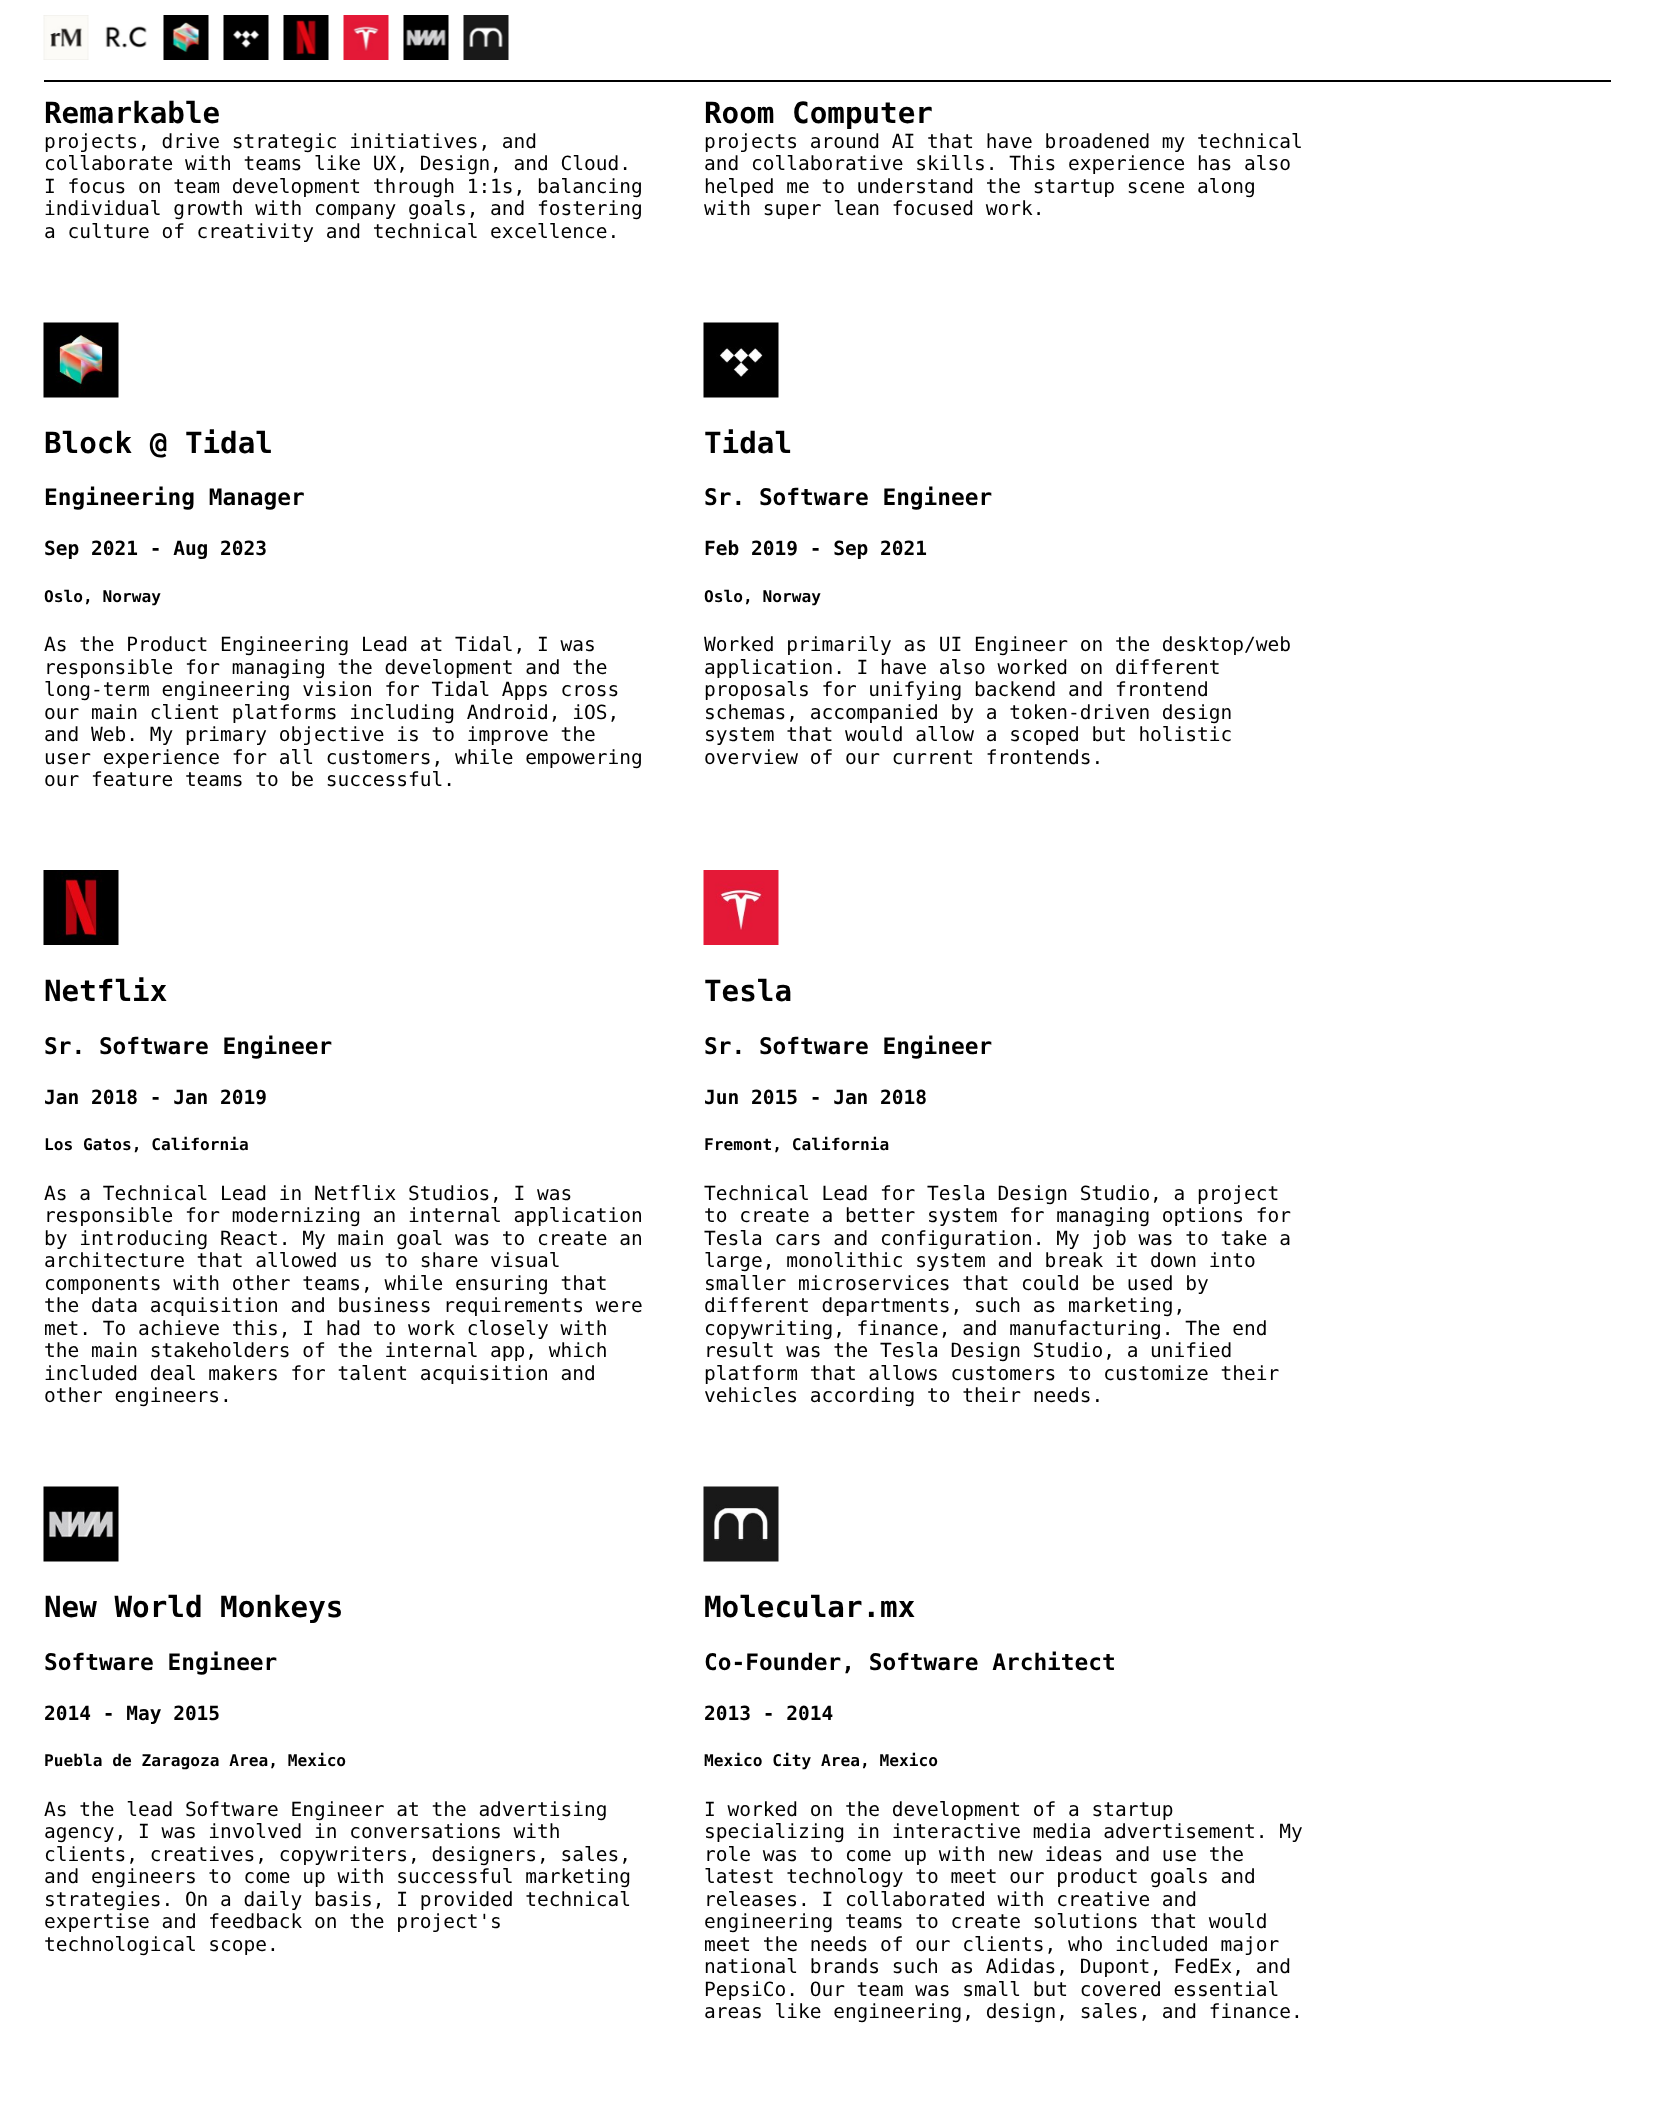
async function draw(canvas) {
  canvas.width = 1654
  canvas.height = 2105
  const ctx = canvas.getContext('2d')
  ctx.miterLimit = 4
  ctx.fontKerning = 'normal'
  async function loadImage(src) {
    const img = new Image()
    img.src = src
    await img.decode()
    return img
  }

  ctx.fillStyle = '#fff'
  ctx.fillRect(0, 0, 1654, 2105)
  ctx.fillStyle = '#000'
  ctx.fillRect(44, 80, 1567, 2)
  ctx.drawImage(await loadImage('image0.png'), 43, 15, 46, 45)
  ctx.drawImage(await loadImage('image1.png'), 105, 26, 42, 22)
  ctx.drawImage(await loadImage('image2.png'), 163, 15, 46, 45)
  ctx.drawImage(await loadImage('image3.png'), 223, 15, 46, 45)
  ctx.drawImage(await loadImage('image4.png'), 283, 15, 46, 45)
  ctx.drawImage(await loadImage('image5.png'), 343, 15, 46, 45)
  ctx.drawImage(await loadImage('image6.png'), 403, 15, 46, 45)
  ctx.drawImage(await loadImage('image7.png'), 463, 15, 46, 45)
  ctx.font = 'bold 29.25px DejaVu Sans Mono'
  ctx.fillText('Remarkable', 44, 123)
  ctx.font = '19.5px DejaVu Sans Mono'
  ctx.fillText('projects, drive strategic initiatives, and', 44, 148)
  ctx.fillText('collaborate with teams like UX, Design, and Cloud.', 44, 170)
  ctx.fillText('I focus on team development through 1:1s, balancing', 44, 193)
  ctx.fillText('individual growth with company goals, and fostering', 44, 215)
  ctx.fillText('a culture of creativity and technical excellence.', 44, 238)
  ctx.font = 'bold 29.25px DejaVu Sans Mono'
  ctx.fillText('Room Computer', 704, 123)
  ctx.font = '19.5px DejaVu Sans Mono'
  ctx.fillText('projects around AI that have broadened my technical', 704, 148)
  ctx.fillText('and collaborative skills. This experience has also', 704, 170)
  ctx.fillText('helped me to understand the startup scene along', 704, 193)
  ctx.fillText('with super lean focused work.', 704, 215)
  ctx.drawImage(await loadImage('image8.png'), 43, 322, 76, 76)
  ctx.font = 'bold 29.25px DejaVu Sans Mono'
  ctx.fillText('Block @ Tidal', 44, 453)
  ctx.font = 'bold 22.8px DejaVu Sans Mono'
  ctx.fillText('Engineering Manager', 44, 505)
  ctx.font = 'bold 19.5px DejaVu Sans Mono'
  ctx.fillText('Sep 2021 - Aug 2023', 44, 555)
  ctx.font = 'bold 16.2px DejaVu Sans Mono'
  ctx.fillText('Oslo, Norway', 44, 602)
  ctx.font = '19.5px DejaVu Sans Mono'
  ctx.fillText('As the Product Engineering Lead at Tidal, I was', 44, 651)
  ctx.fillText('responsible for managing the development and the', 44, 674)
  ctx.fillText('long-term engineering vision for Tidal Apps cross', 44, 696)
  ctx.fillText('our main client platforms including Android, iOS,', 44, 719)
  ctx.fillText('and Web. My primary objective is to improve the', 44, 741)
  ctx.fillText('user experience for all customers, while empowering', 44, 764)
  ctx.fillText('our feature teams to be successful.', 44, 786)
  ctx.drawImage(await loadImage('image9.png'), 703, 322, 76, 76)
  ctx.font = 'bold 29.25px DejaVu Sans Mono'
  ctx.fillText('Tidal', 704, 453)
  ctx.font = 'bold 22.8px DejaVu Sans Mono'
  ctx.fillText('Sr. Software Engineer', 704, 505)
  ctx.font = 'bold 19.5px DejaVu Sans Mono'
  ctx.fillText('Feb 2019 - Sep 2021', 704, 555)
  ctx.font = 'bold 16.2px DejaVu Sans Mono'
  ctx.fillText('Oslo, Norway', 704, 602)
  ctx.font = '19.5px DejaVu Sans Mono'
  ctx.fillText('Worked primarily as UI Engineer on the desktop/web', 704, 651)
  ctx.fillText('application. I have also worked on different', 704, 674)
  ctx.fillText('proposals for unifying backend and frontend', 704, 696)
  ctx.fillText('schemas, accompanied by a token-driven design', 704, 719)
  ctx.fillText('system that would allow a scoped but holistic', 704, 741)
  ctx.fillText('overview of our current frontends.', 704, 764)
  ctx.drawImage(await loadImage('image10.png'), 43, 870, 76, 75)
  ctx.font = 'bold 29.25px DejaVu Sans Mono'
  ctx.fillText('Netflix', 44, 1001)
  ctx.font = 'bold 22.8px DejaVu Sans Mono'
  ctx.fillText('Sr. Software Engineer', 44, 1054)
  ctx.font = 'bold 19.5px DejaVu Sans Mono'
  ctx.fillText('Jan 2018 - Jan 2019', 44, 1104)
  ctx.font = 'bold 16.2px DejaVu Sans Mono'
  ctx.fillText('Los Gatos, California', 44, 1150)
  ctx.font = '19.5px DejaVu Sans Mono'
  ctx.fillText('As a Technical Lead in Netflix Studios, I was', 44, 1200)
  ctx.fillText('responsible for modernizing an internal application', 44, 1222)
  ctx.fillText('by introducing React. My main goal was to create an', 44, 1245)
  ctx.fillText('architecture that allowed us to share visual', 44, 1267)
  ctx.fillText('components with other teams, while ensuring that', 44, 1290)
  ctx.fillText('the data acquisition and business requirements were', 44, 1312)
  ctx.fillText('met. To achieve this, I had to work closely with', 44, 1335)
  ctx.fillText('the main stakeholders of the internal app, which', 44, 1357)
  ctx.fillText('included deal makers for talent acquisition and', 44, 1380)
  ctx.fillText('other engineers.', 44, 1402)
  ctx.drawImage(await loadImage('image11.png'), 703, 870, 76, 75)
  ctx.font = 'bold 29.25px DejaVu Sans Mono'
  ctx.fillText('Tesla', 704, 1001)
  ctx.font = 'bold 22.8px DejaVu Sans Mono'
  ctx.fillText('Sr. Software Engineer', 704, 1054)
  ctx.font = 'bold 19.5px DejaVu Sans Mono'
  ctx.fillText('Jun 2015 - Jan 2018', 704, 1104)
  ctx.font = 'bold 16.2px DejaVu Sans Mono'
  ctx.fillText('Fremont, California', 704, 1150)
  ctx.font = '19.5px DejaVu Sans Mono'
  ctx.fillText('Technical Lead for Tesla Design Studio, a project', 704, 1200)
  ctx.fillText('to create a better system for managing options for', 704, 1222)
  ctx.fillText('Tesla cars and configuration. My job was to take a', 704, 1245)
  ctx.fillText('large, monolithic system and break it down into', 704, 1267)
  ctx.fillText('smaller microservices that could be used by', 704, 1290)
  ctx.fillText('different departments, such as marketing,', 704, 1312)
  ctx.fillText('copywriting, finance, and manufacturing. The end', 704, 1335)
  ctx.fillText('result was the Tesla Design Studio, a unified', 704, 1357)
  ctx.fillText('platform that allows customers to customize their', 704, 1380)
  ctx.fillText('vehicles according to their needs.', 704, 1402)
  ctx.drawImage(await loadImage('image12.png'), 43, 1486, 76, 76)
  ctx.font = 'bold 29.25px DejaVu Sans Mono'
  ctx.fillText('New World Monkeys', 44, 1617)
  ctx.font = 'bold 22.8px DejaVu Sans Mono'
  ctx.fillText('Software Engineer', 44, 1670)
  ctx.font = 'bold 19.5px DejaVu Sans Mono'
  ctx.fillText('2014 - May 2015', 44, 1720)
  ctx.font = 'bold 16.2px DejaVu Sans Mono'
  ctx.fillText('Puebla de Zaragoza Area, Mexico', 44, 1766)
  ctx.font = '19.5px DejaVu Sans Mono'
  ctx.fillText('As the lead Software Engineer at the advertising', 44, 1816)
  ctx.fillText('agency, I was involved in conversations with', 44, 1838)
  ctx.fillText('clients, creatives, copywriters, designers, sales,', 44, 1861)
  ctx.fillText('and engineers to come up with successful marketing', 44, 1883)
  ctx.fillText('strategies. On a daily basis, I provided technical', 44, 1906)
  ctx.fillText('expertise and feedback on the project\'s', 44, 1928)
  ctx.fillText('technological scope.', 44, 1951)
  ctx.drawImage(await loadImage('image13.png'), 703, 1486, 76, 76)
  ctx.font = 'bold 29.25px DejaVu Sans Mono'
  ctx.fillText('Molecular.mx', 704, 1617)
  ctx.font = 'bold 22.8px DejaVu Sans Mono'
  ctx.fillText('Co-Founder, Software Architect', 704, 1670)
  ctx.font = 'bold 19.5px DejaVu Sans Mono'
  ctx.fillText('2013 - 2014', 704, 1720)
  ctx.font = 'bold 16.2px DejaVu Sans Mono'
  ctx.fillText('Mexico City Area, Mexico', 704, 1766)
  ctx.font = '19.5px DejaVu Sans Mono'
  ctx.fillText('I worked on the development of a startup', 704, 1816)
  ctx.fillText('specializing in interactive media advertisement. My', 704, 1838)
  ctx.fillText('role was to come up with new ideas and use the', 704, 1861)
  ctx.fillText('latest technology to meet our product goals and', 704, 1883)
  ctx.fillText('releases. I collaborated with creative and', 704, 1906)
  ctx.fillText('engineering teams to create solutions that would', 704, 1928)
  ctx.fillText('meet the needs of our clients, who included major', 704, 1951)
  ctx.fillText('national brands such as Adidas, Dupont, FedEx, and', 704, 1973)
  ctx.fillText('PepsiCo. Our team was small but covered essential', 704, 1996)
  ctx.fillText('areas like engineering, design, sales, and finance.', 704, 2018)
}

draw(document.querySelector('canvas'))
